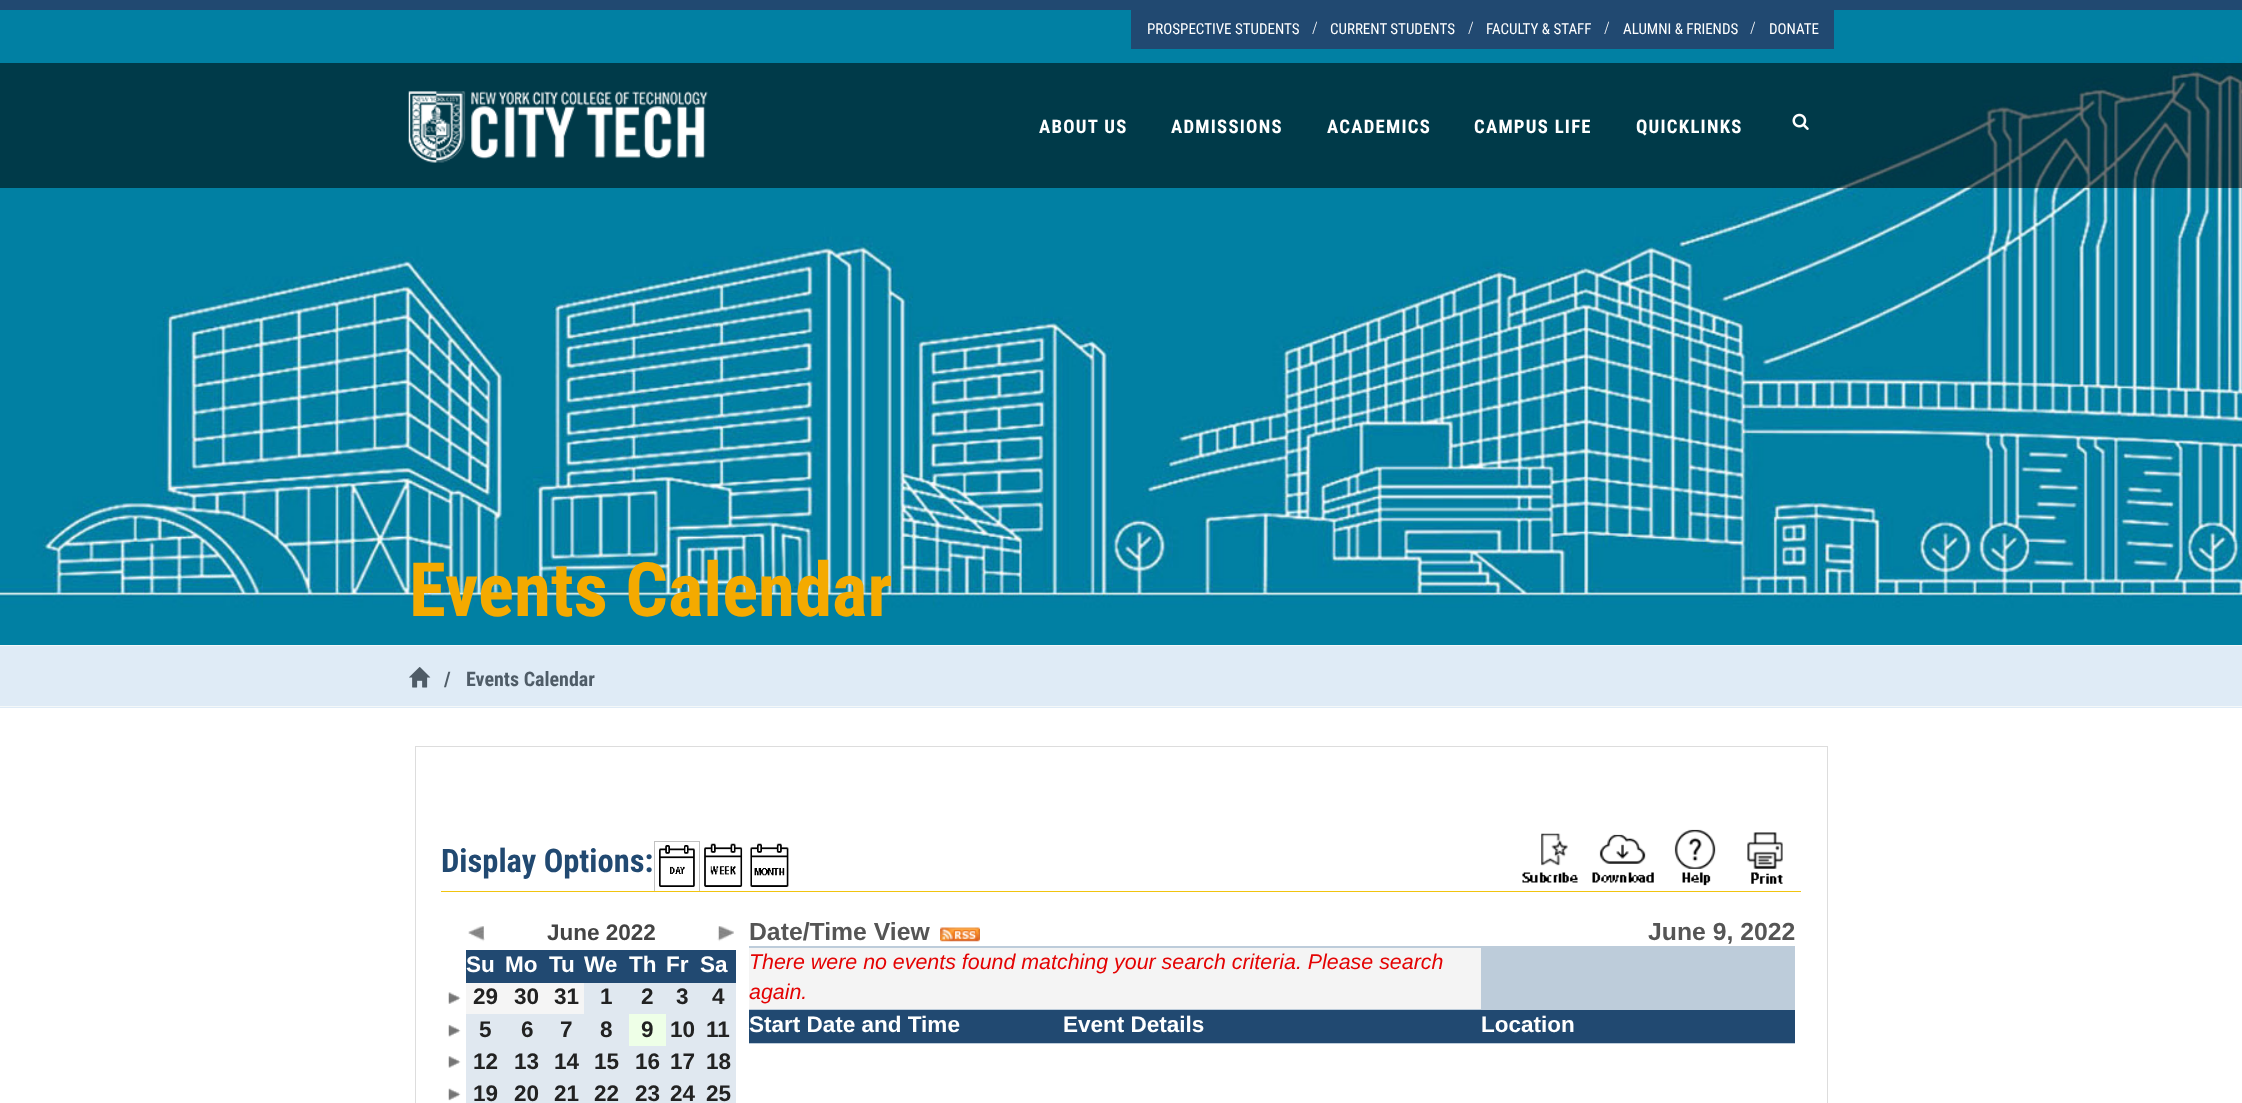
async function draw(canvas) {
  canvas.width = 2242
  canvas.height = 1103
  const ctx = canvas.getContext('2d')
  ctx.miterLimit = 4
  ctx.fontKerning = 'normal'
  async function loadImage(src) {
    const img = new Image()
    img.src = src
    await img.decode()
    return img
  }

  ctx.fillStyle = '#fff'
  ctx.fillRect(0, 0, 2242, 1103)
  ctx.fillStyle = '#214971'
  ctx.fillRect(0, 0, 2242, 10)
  ctx.drawImage(await loadImage('image2.png'), 0, 10, 2242, 635)
  ctx.fillRect(1131, 10, 703, 39)
  ctx.font = '15px Roboto Condensed'
  ctx.fillStyle = '#fff'
  ctx.fillText('PROSPECTIVE STUDENTS', 1147, 34)
  ctx.font = '300 16px Roboto Condensed'
  ctx.fillText('/', 1312, 33)
  ctx.font = '15px Roboto Condensed'
  ctx.fillText('CURRENT STUDENTS', 1330, 34)
  ctx.font = '300 16px Roboto Condensed'
  ctx.fillText('/', 1468, 33)
  ctx.font = '15px Roboto Condensed'
  ctx.fillText('FACULTY & STAFF', 1486, 34)
  ctx.font = '300 16px Roboto Condensed'
  ctx.fillText('/', 1604, 33)
  ctx.font = '15px Roboto Condensed'
  ctx.fillText('ALUMNI & FRIENDS', 1623, 34)
  ctx.font = '300 16px Roboto Condensed'
  ctx.fillText('/', 1750, 33)
  ctx.font = '15px Roboto Condensed'
  ctx.fillText('DONATE', 1769, 34)
  ctx.fillStyle = '#0000008c'
  ctx.fillRect(0, 63, 2242, 125)
  ctx.drawImage(await loadImage('image0.png'), 408, 91, 300, 72)
  ctx.letterSpacing = '1.25px'
  ctx.font = 'bold 18.75px Roboto Condensed'
  ctx.fillStyle = '#fff'
  ctx.fillText('ABOUT US', 1039, 133)
  ctx.fillText('ADMISSIONS', 1171, 133)
  ctx.fillText('ACADEMICS', 1327, 133)
  ctx.fillText('CAMPUS LIFE', 1474, 133)
  ctx.fillText('QUICKLINKS', 1636, 133)
  ctx.drawImage(await loadImage('image1.png'), 1792, 113, 17, 17)
  ctx.letterSpacing = '0px'
  ctx.font = 'bold 75px Roboto Condensed'
  ctx.fillStyle = '#f4aa00'
  ctx.fillText('Events Calendar', 409, 616)
  ctx.fillStyle = '#dfebf6'
  ctx.fillRect(0, 646, 2242, 62)
  ctx.fillStyle = '#f4f8f9'
  ctx.fillRect(0, 645, 2242, 1)
  ctx.fillRect(0, 706, 2242, 1)
  ctx.drawImage(await loadImage('image3.png'), 409, 667, 22, 21)
  ctx.font = 'bold 20px Roboto Condensed'
  ctx.fillStyle = '#4f5c67'
  ctx.fillText('/', 444, 686)
  ctx.fillText('Events Calendar', 466, 686)
  ctx.strokeStyle = '#ddd'
  ctx.strokeRect(415.5, 746.5, 1412, 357)
  ctx.fillStyle = '#f1c40f'
  ctx.fillRect(441, 891, 1360, 1)
  ctx.font = 'bold 32.5px Roboto Condensed'
  ctx.fillStyle = '#214971'
  ctx.fillText('Display Options:', 441, 872)
  ctx.fillStyle = '#c1c1c1'
  ctx.fillRect(654, 841, 46, 1)
  ctx.fillRect(699, 841, 1, 50)
  ctx.fillRect(654, 841, 1, 50)
  ctx.drawImage(await loadImage('image4.png'), 659, 845, 36, 42)
  ctx.drawImage(await loadImage('image5.png'), 704, 843, 39, 44)
  ctx.drawImage(await loadImage('image6.png'), 750, 843, 39, 44)
  ctx.drawImage(await loadImage('image7.png'), 1522, 833, 56, 50)
  ctx.drawImage(await loadImage('image8.png'), 1592, 834, 62, 49)
  ctx.drawImage(await loadImage('image9.png'), 1674, 829, 42, 57)
  ctx.drawImage(await loadImage('image10.png'), 1747, 832, 36, 52)
  ctx.drawImage(await loadImage('image11.png'), 468, 926, 17, 16)
  ctx.font = 'bold 22.5px Liberation Sans'
  ctx.fillStyle = '#444'
  ctx.fillText('June 2022', 547, 940)
  ctx.drawImage(await loadImage('image12.png'), 717, 926, 17, 16)
  ctx.fillStyle = '#214971'
  ctx.fillRect(466, 950, 270, 33)
  ctx.fillStyle = '#fff'
  ctx.fillText('Su', 466, 972)
  ctx.fillText('Mo', 505, 972)
  ctx.fillText('Tu', 549, 972)
  ctx.fillText('We', 584, 972)
  ctx.fillText('Th', 629, 972)
  ctx.fillText('Fr', 666, 972)
  ctx.fillText('Sa', 700, 972)
  ctx.drawImage(await loadImage('image13.png'), 448, 992, 13, 12)
  ctx.fillStyle = '#f5f5f5'
  ctx.fillRect(466, 983, 118, 31)
  ctx.fillStyle = '#222'
  ctx.fillText('29', 473, 1004)
  ctx.fillText('30', 514, 1004)
  ctx.fillText('31', 554, 1004)
  ctx.fillStyle = '#e0e8f0'
  ctx.fillRect(584, 983, 152, 31)
  ctx.fillStyle = '#222'
  ctx.fillText('1', 600, 1004)
  ctx.fillText('2', 641, 1004)
  ctx.fillText('3', 676, 1004)
  ctx.fillText('4', 712, 1004)
  ctx.drawImage(await loadImage('image14.png'), 448, 1024, 13, 13)
  ctx.fillStyle = '#e0e8f0'
  ctx.fillRect(466, 1014, 163, 32)
  ctx.fillStyle = '#222'
  ctx.fillText('5', 479, 1037)
  ctx.fillText('6', 521, 1037)
  ctx.fillText('7', 560, 1037)
  ctx.fillText('8', 600, 1037)
  ctx.fillStyle = '#eeffe7'
  ctx.fillRect(629, 1014, 37, 32)
  ctx.fillStyle = '#222'
  ctx.fillText('9', 641, 1037)
  ctx.fillStyle = '#e0e8f0'
  ctx.fillRect(666, 1014, 70, 32)
  ctx.fillStyle = '#222'
  ctx.fillText('10', 670, 1037)
  ctx.fillText('11', 706, 1037)
  ctx.drawImage(await loadImage('image15.png'), 448, 1056, 13, 12)
  ctx.fillStyle = '#e0e8f0'
  ctx.fillRect(466, 1046, 270, 33)
  ctx.fillStyle = '#222'
  ctx.fillText('12', 473, 1069)
  ctx.fillText('13', 514, 1069)
  ctx.fillText('14', 554, 1069)
  ctx.fillText('15', 594, 1069)
  ctx.fillText('16', 635, 1069)
  ctx.fillText('17', 670, 1069)
  ctx.fillText('18', 706, 1069)
  ctx.drawImage(await loadImage('image16.png'), 448, 1088, 13, 13)
  ctx.fillStyle = '#e0e8f0'
  ctx.fillRect(466, 1079, 270, 24)
  ctx.fillStyle = '#222'
  ctx.fillText('19', 473, 1101)
  ctx.fillText('20', 514, 1101)
  ctx.fillText('21', 554, 1101)
  ctx.fillText('22', 594, 1101)
  ctx.fillText('23', 635, 1101)
  ctx.fillText('24', 670, 1101)
  ctx.fillText('25', 706, 1101)
  ctx.font = 'bold 24.75px Liberation Sans'
  ctx.fillStyle = '#555'
  ctx.fillText('Date/Time View', 749, 940)
  ctx.drawImage(await loadImage('image17.png'), 940, 927, 40, 15)
  ctx.fillText('June 9, 2022', 1648, 940)
  ctx.fillStyle = '#bdccda'
  ctx.fillRect(749, 946, 1046, 98)
  ctx.fillStyle = '#f4f4f4'
  ctx.fillRect(749, 948, 732, 61)
  ctx.font = 'italic 21.4px Liberation Sans'
  ctx.fillStyle = '#e40303'
  ctx.fillText('There were no events found matching your search criteria. Please search', 749, 969)
  ctx.fillText('again.', 749, 999)
  ctx.fillStyle = '#214971'
  ctx.fillRect(749, 1010, 1046, 33)
  ctx.font = 'bold 22.5px Liberation Sans'
  ctx.fillStyle = '#fff'
  ctx.fillText('Start Date and Time', 749, 1032)
  ctx.fillText('Event Details', 1063, 1032)
  ctx.fillText('Location', 1481, 1032)
}

draw(document.querySelector('canvas'))
